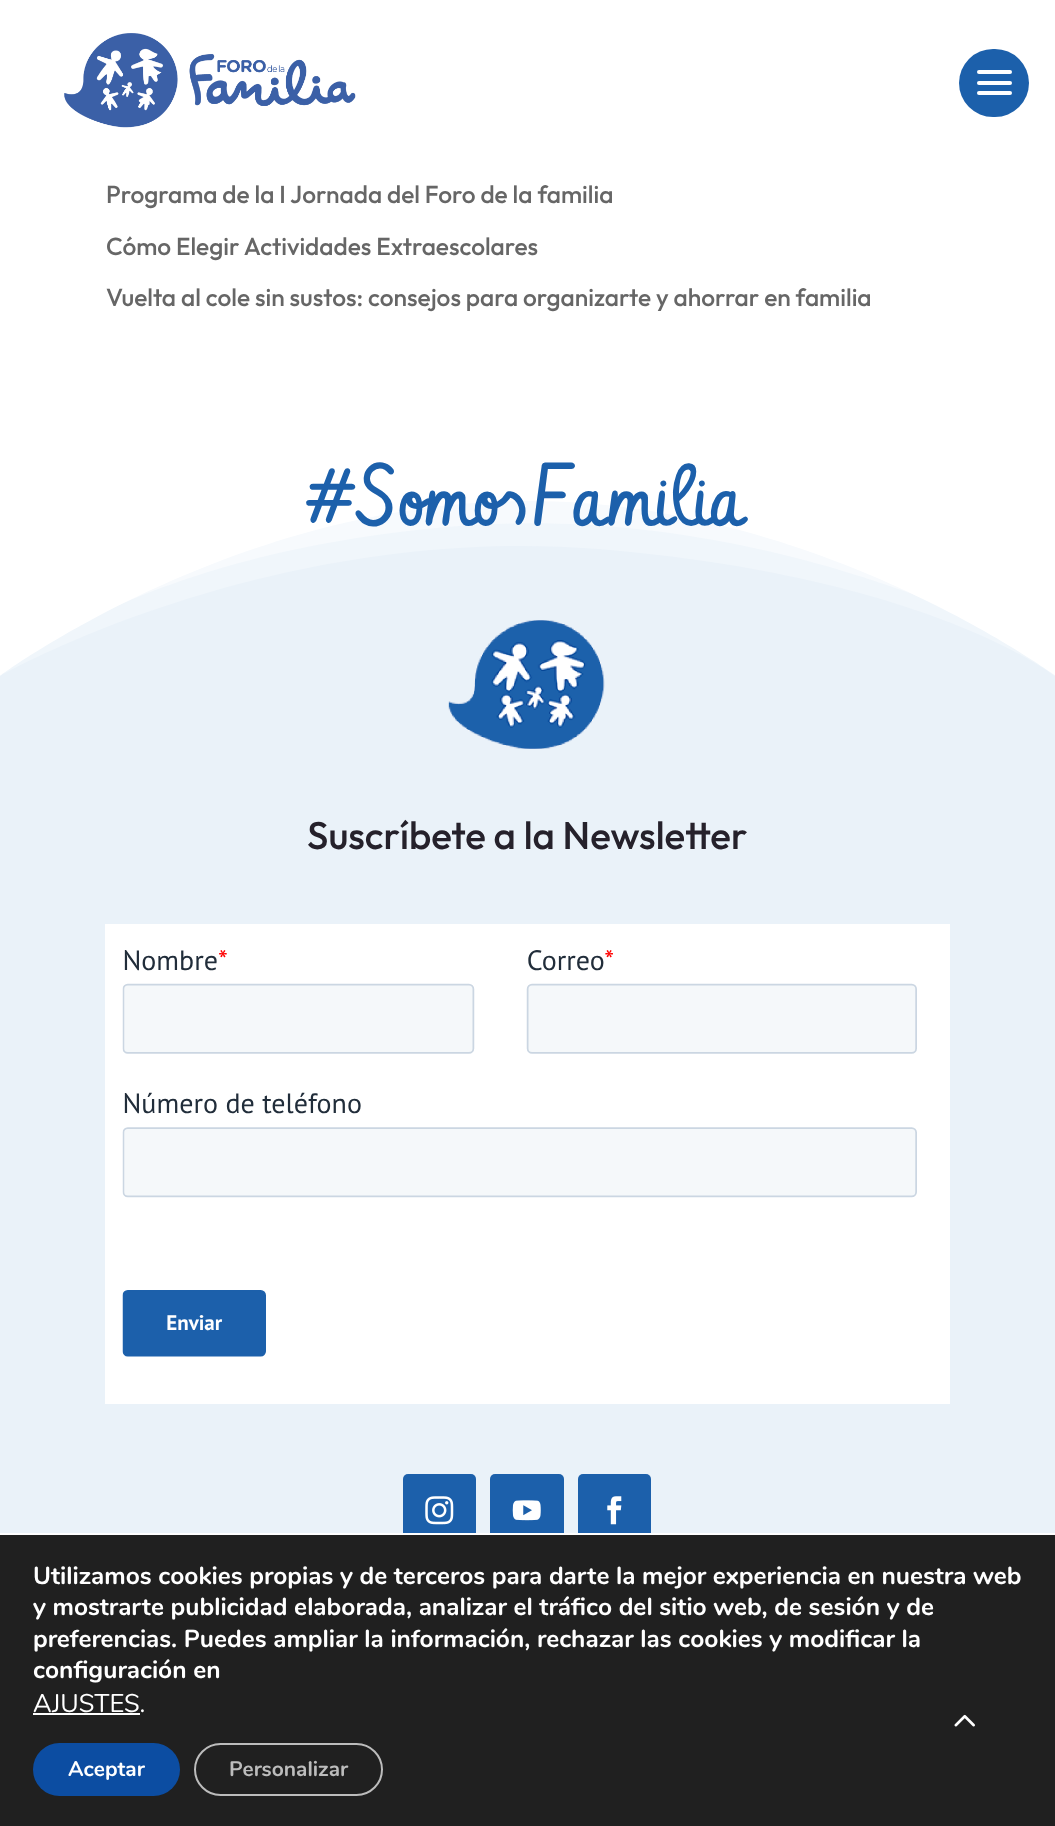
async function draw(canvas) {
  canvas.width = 1055
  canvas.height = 1826
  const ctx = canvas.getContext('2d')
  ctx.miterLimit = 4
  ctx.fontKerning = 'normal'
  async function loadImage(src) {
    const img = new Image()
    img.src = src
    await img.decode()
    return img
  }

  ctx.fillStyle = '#fff'
  ctx.fillRect(0, 0, 1055, 1826)
  ctx.drawImage(await loadImage('image0.png'), 64, 33, 292, 95)
  ctx.fillStyle = '#1c60ab'
  ctx.beginPath()
  ctx.roundRect(959, 49, 70, 68, 34)
  ctx.fill()
  ctx.fillStyle = '#fff'
  ctx.beginPath()
  ctx.roundRect(977, 81, 35, 4, 2)
  ctx.fill()
  ctx.beginPath()
  ctx.roundRect(977, 70, 35, 4, 2)
  ctx.fill()
  ctx.beginPath()
  ctx.roundRect(977, 91, 35, 4, 2)
  ctx.fill()
  ctx.font = '500 24.5px Outfit'
  ctx.fillStyle = '#666'
  ctx.fillText('Programa de la I Jornada del Foro de la familia', 106, 203)
  ctx.fillText('Cómo Elegir Actividades Extraescolares', 106, 255)
  ctx.fillText('Vuelta al cole sin sustos: consejos para organizarte y ahorrar en familia', 106, 306)
  ctx.fillStyle = '#eaf2f9'
  ctx.fillRect(0, 546, 1055, 987)
  ctx.fillStyle = '#f0f6fb'
  ctx.beginPath()
  ctx.moveTo(598, 549)
  ctx.bezierCurveTo(268, 523, 0, 676, 0, 676)
  ctx.lineTo(0, 501)
  ctx.lineTo(1055, 501)
  ctx.lineTo(1055, 676)
  ctx.bezierCurveTo(1055, 676, 928, 576, 598, 549)
  ctx.closePath()
  ctx.fill()
  ctx.fillStyle = '#f7fafd'
  ctx.beginPath()
  ctx.moveTo(459, 526)
  ctx.bezierCurveTo(786, 501, 1055, 658, 1055, 658)
  ctx.lineTo(1055, 501)
  ctx.lineTo(0, 501)
  ctx.lineTo(0, 676)
  ctx.bezierCurveTo(0, 676, 131, 552, 459, 526)
  ctx.closePath()
  ctx.fill()
  ctx.save()
  ctx.beginPath()
  ctx.rect(0, 501, 1055, 175)
  ctx.clip()
  ctx.fillStyle = '#fff'
  ctx.beginPath()
  ctx.moveTo(528, 501)
  ctx.bezierCurveTo(819, 501, 1055, 676, 1055, 675)
  ctx.lineTo(1055, 500)
  ctx.lineTo(0, 500)
  ctx.lineTo(0, 676)
  ctx.bezierCurveTo(0, 676, 236, 501, 528, 501)
  ctx.closePath()
  ctx.fill()
  ctx.restore()
  ctx.font = '84px Vibur'
  ctx.fillStyle = '#1c60ab'
  ctx.fillText('#Somos', 306, 526)
  ctx.fillText('Familia', 532, 526)
  ctx.drawImage(await loadImage('image1.png'), 448, 620, 157, 129)
  ctx.font = '500 38.5px Outfit'
  ctx.fillStyle = '#25212b'
  ctx.fillText('Suscríbete a la Newsletter', 307, 849)
  ctx.fillStyle = '#fff'
  ctx.fillRect(105, 924, 845, 480)
  ctx.drawImage(await loadImage('image2.png'), 122, 950, 795, 407)
  ctx.fillStyle = '#1c60ab'
  ctx.beginPath()
  ctx.roundRect(403, 1474, 73, 73, 5)
  ctx.fill()
  ctx.drawImage(await loadImage('image3.png'), 425, 1496, 29, 29)
  ctx.beginPath()
  ctx.roundRect(490, 1474, 74, 73, 5)
  ctx.fill()
  ctx.drawImage(await loadImage('image4.png'), 512, 1500, 29, 21)
  ctx.beginPath()
  ctx.roundRect(578, 1474, 73, 73, 5)
  ctx.fill()
  ctx.drawImage(await loadImage('image5.png'), 607, 1496, 15, 29)
  ctx.fillStyle = '#202020'
  ctx.fillRect(0, 1535, 1055, 291)
  ctx.fillStyle = '#fff'
  ctx.fillRect(403, 1533, 248, 2)
  ctx.font = 'bold 24.5px Nunito'
  ctx.fillText('Utilizamos cookies propias y de terceros para darte la mejor experiencia en nuestra web', 33, 1584)
  ctx.fillText('y mostrarte publicidad elaborada, analizar el tráfico del sitio web, de sesión y de', 33, 1615)
  ctx.fillText('preferencias. Puedes ampliar la información, rechazar las cookies y modificar la', 33, 1647)
  ctx.fillText('configuración en', 33, 1678)
  ctx.font = '25.5px Nunito'
  ctx.fillText('AJUSTES.', 33, 1712)
  ctx.fillRect(33, 1713, 107, 2)
  ctx.fillStyle = '#0c4da2'
  ctx.beginPath()
  ctx.roundRect(33, 1743, 147, 53, 26.5)
  ctx.fill()
  ctx.font = 'bold 21px Nunito'
  ctx.fillStyle = '#fff'
  ctx.fillText('Aceptar', 68, 1776)
  ctx.beginPath()
  ctx.roundRect(195, 1744, 187, 51, 25.5)
  ctx.strokeStyle = '#bcbcbc'
  ctx.lineWidth = 2
  ctx.stroke()
  ctx.fillStyle = '#bcbcbc'
  ctx.fillText('Personalizar', 229, 1776)
  ctx.drawImage(await loadImage('image6.png'), 954, 1714, 21, 13)
}

draw(document.querySelector('canvas'))
